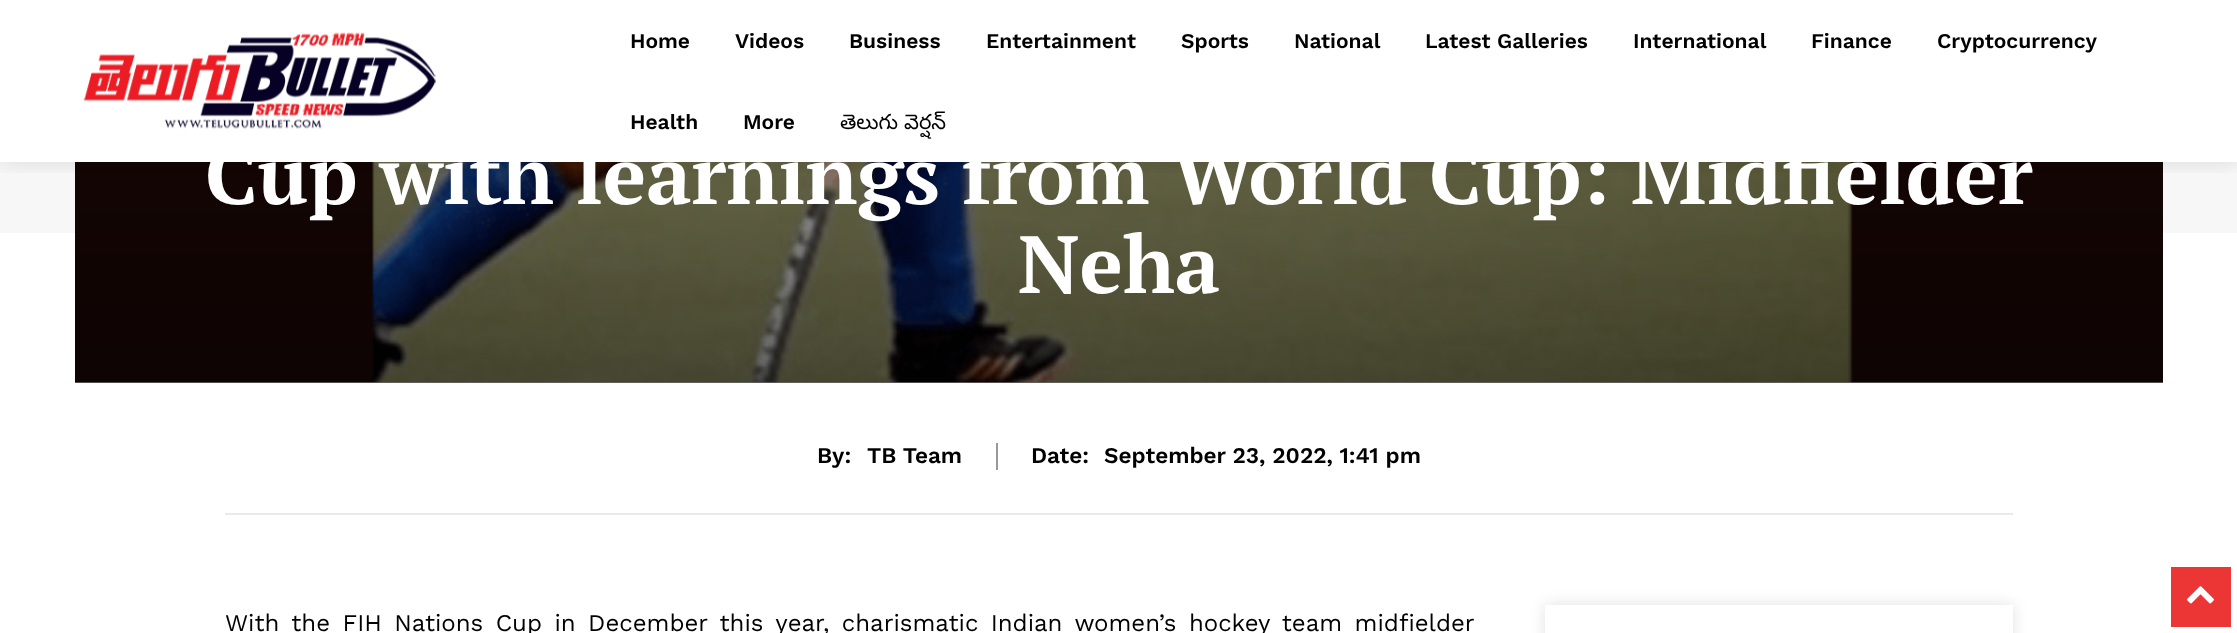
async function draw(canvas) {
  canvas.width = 2237
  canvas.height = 633
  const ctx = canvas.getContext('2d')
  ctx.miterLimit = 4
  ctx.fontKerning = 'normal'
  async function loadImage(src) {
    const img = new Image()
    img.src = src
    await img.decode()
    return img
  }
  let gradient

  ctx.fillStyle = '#fff'
  ctx.fillRect(0, 0, 2237, 633)
  ctx.drawImage(await loadImage('image0.png'), 83, 32, 353, 97)
  ctx.fillStyle = '#f7f7f7'
  ctx.fillRect(0, 162, 2237, 71)
  ctx.drawImage(await loadImage('image1.png'), 75, 162, 2088, 221)
  gradient = ctx.createLinearGradient(1119, 383, 1119, -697)
  gradient.addColorStop(0, '#00000099')
  gradient.addColorStop(0.42, '#0000004d')
  gradient.addColorStop(0.61, '#00000000')
  gradient.addColorStop(1, '#00000000')
  ctx.fillStyle = gradient
  ctx.fillRect(75, 162, 2088, 221)
  ctx.save()
  ctx.beginPath()
  ctx.rect(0, 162, 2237, 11)
  ctx.clip()
  ctx.fillStyle = '#0000001f'
  ctx.filter = 'blur(11px)'
  ctx.beginPath()
  ctx.rect(0, 0, 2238, 162)
  ctx.fill()
  ctx.filter = 'none'
  ctx.restore()
  ctx.font = '600 21px Work Sans'
  ctx.fillStyle = '#000'
  ctx.fillText('Home', 630, 48)
  ctx.fillText('Videos', 735, 48)
  ctx.fillText('Business', 849, 48)
  ctx.fillText('Entertainment', 986, 48)
  ctx.fillText('Sports', 1181, 48)
  ctx.fillText('National', 1294, 48)
  ctx.fillText('Latest Galleries', 1425, 48)
  ctx.fillText('International', 1633, 48)
  ctx.fillText('Finance', 1811, 48)
  ctx.fillText('Cryptocurrency', 1937, 48)
  ctx.fillText('Health', 630, 129)
  ctx.fillText('More', 743, 129)
  ctx.font = '21px Noto Sans Telugu'
  ctx.fillText('తెలుగు వెర్షన్', 840, 129)
  ctx.font = 'bold 81px PT Serif'
  ctx.fillStyle = '#fff'
  ctx.fillText('Cup with learnings from World Cup: Midfielder', 205, 204)
  ctx.fillText('Neha', 1018, 293)
  ctx.font = '600 22.5px Work Sans'
  ctx.fillStyle = '#000'
  ctx.fillText('By:', 817, 463)
  ctx.fillText('TB Team', 867, 463)
  ctx.fillStyle = '#999'
  ctx.fillRect(996, 443, 2, 27)
  ctx.fillStyle = '#000'
  ctx.fillText('Date:', 1031, 463)
  ctx.fillText('September 23, 2022, 1:41 pm', 1104, 463)
  ctx.fillStyle = '#eaeaea'
  ctx.fillRect(225, 513, 1788, 2)
  ctx.wordSpacing = '4.25px'
  ctx.font = '24px Work Sans'
  ctx.fillStyle = '#000'
  ctx.fillText('With the FIH Nations Cup in December this year, charismatic Indian women’s hockey team midfielder', 225, 631)
  ctx.save()
  ctx.beginPath()
  ctx.moveTo(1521, 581)
  ctx.lineTo(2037, 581)
  ctx.lineTo(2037, 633)
  ctx.lineTo(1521, 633)
  ctx.closePath()
  ctx.moveTo(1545, 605)
  ctx.lineTo(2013, 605)
  ctx.lineTo(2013, 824)
  ctx.lineTo(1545, 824)
  ctx.closePath()
  ctx.clip('evenodd')
  ctx.fillStyle = '#0000001f'
  ctx.filter = 'blur(7.5px)'
  ctx.beginPath()
  ctx.rect(1545, 605, 468, 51)
  ctx.fill()
  ctx.filter = 'none'
  ctx.restore()
  ctx.fillStyle = '#ec3535'
  ctx.fillRect(2171, 567, 60, 60)
  ctx.drawImage(await loadImage('image2.png'), 2187, 586, 27, 18)
}

draw(document.querySelector('canvas'))
